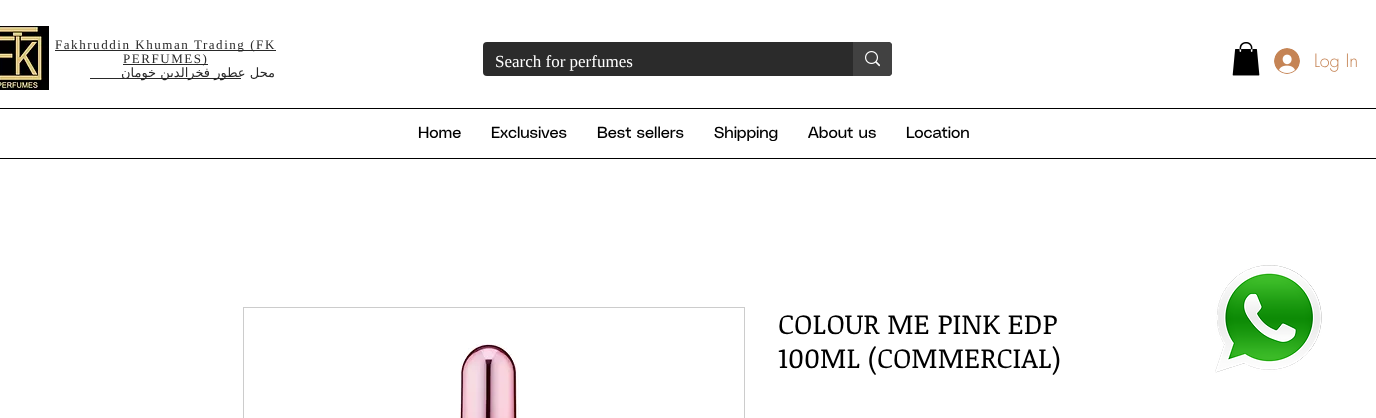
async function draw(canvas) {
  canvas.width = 1376
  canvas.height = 418
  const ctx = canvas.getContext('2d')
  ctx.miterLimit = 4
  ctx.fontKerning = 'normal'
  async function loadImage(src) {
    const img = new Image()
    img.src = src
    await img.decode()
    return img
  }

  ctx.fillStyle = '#fff'
  ctx.fillRect(0, 0, 1376, 418)
  ctx.drawImage(await loadImage('image0.png'), 0, 26, 49, 64)
  ctx.fillStyle = '#292929'
  ctx.fillRect(55, 50, 221, 1)
  ctx.letterSpacing = '1.55px'
  ctx.font = '13px Liberation Serif'
  ctx.fillText('Fakhruddin Khuman Trading (FK', 55, 49)
  ctx.fillRect(123, 64, 85, 1)
  ctx.fillText('PERFUMES)', 123, 63)
  ctx.fillRect(90, 78, 151, 1)
  ctx.wordSpacing = '-1.5px'
  ctx.direction = 'rtl'
  ctx.font = '13px DejaVu Sans'
  ctx.fillText('محل عطور فخرالدين خومان', 275, 77)
  ctx.fillStyle = '#2b2b2b'
  ctx.beginPath()
  ctx.roundRect(483, 42, 409, 34, 4)
  ctx.fill()
  ctx.letterSpacing = '0px'
  ctx.wordSpacing = '0px'
  ctx.direction = 'ltr'
  ctx.font = '17px Liberation Serif'
  ctx.fillStyle = '#fff'
  ctx.fillText('Search for perfumes', 495, 67)
  ctx.fillStyle = '#414141'
  ctx.beginPath()
  ctx.roundRect(853, 42, 39, 34, [0, 4, 4, 0])
  ctx.fill()
  ctx.drawImage(await loadImage('image1.png'), 865, 51, 15, 16)
  ctx.drawImage(await loadImage('image2.png'), 1232, 42, 28, 34)
  ctx.drawImage(await loadImage('image3.png'), 1274, 48, 26, 26)
  ctx.font = '300 18px futura'
  ctx.fillStyle = '#c58455'
  ctx.fillText('Log In', 1314, 67)
  ctx.fillStyle = '#000'
  ctx.fillRect(0, 108, 1376, 1)
  ctx.fillRect(0, 158, 1376, 1)
  ctx.font = '16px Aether'
  ctx.fillText('Home', 418, 138)
  ctx.fillText('Exclusives', 491, 138)
  ctx.fillText('Best sellers', 597, 138)
  ctx.fillText('Shipping', 714, 138)
  ctx.fillText('About us', 808, 138)
  ctx.fillText('Location', 906, 138)
  ctx.strokeStyle = '#ccc'
  ctx.strokeRect(243.5, 307.5, 501, 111)
  ctx.drawImage(await loadImage('image4.png'), 460, 344, 59, 74)
  ctx.font = '28px Noticia Text'
  ctx.fillText('COLOUR ME PINK EDP', 778, 334)
  ctx.fillText('100ML (COMMERCIAL)', 778, 368)
  ctx.drawImage(await loadImage('image5.png'), 1215, 265, 107, 108)
}

draw(document.querySelector('canvas'))
